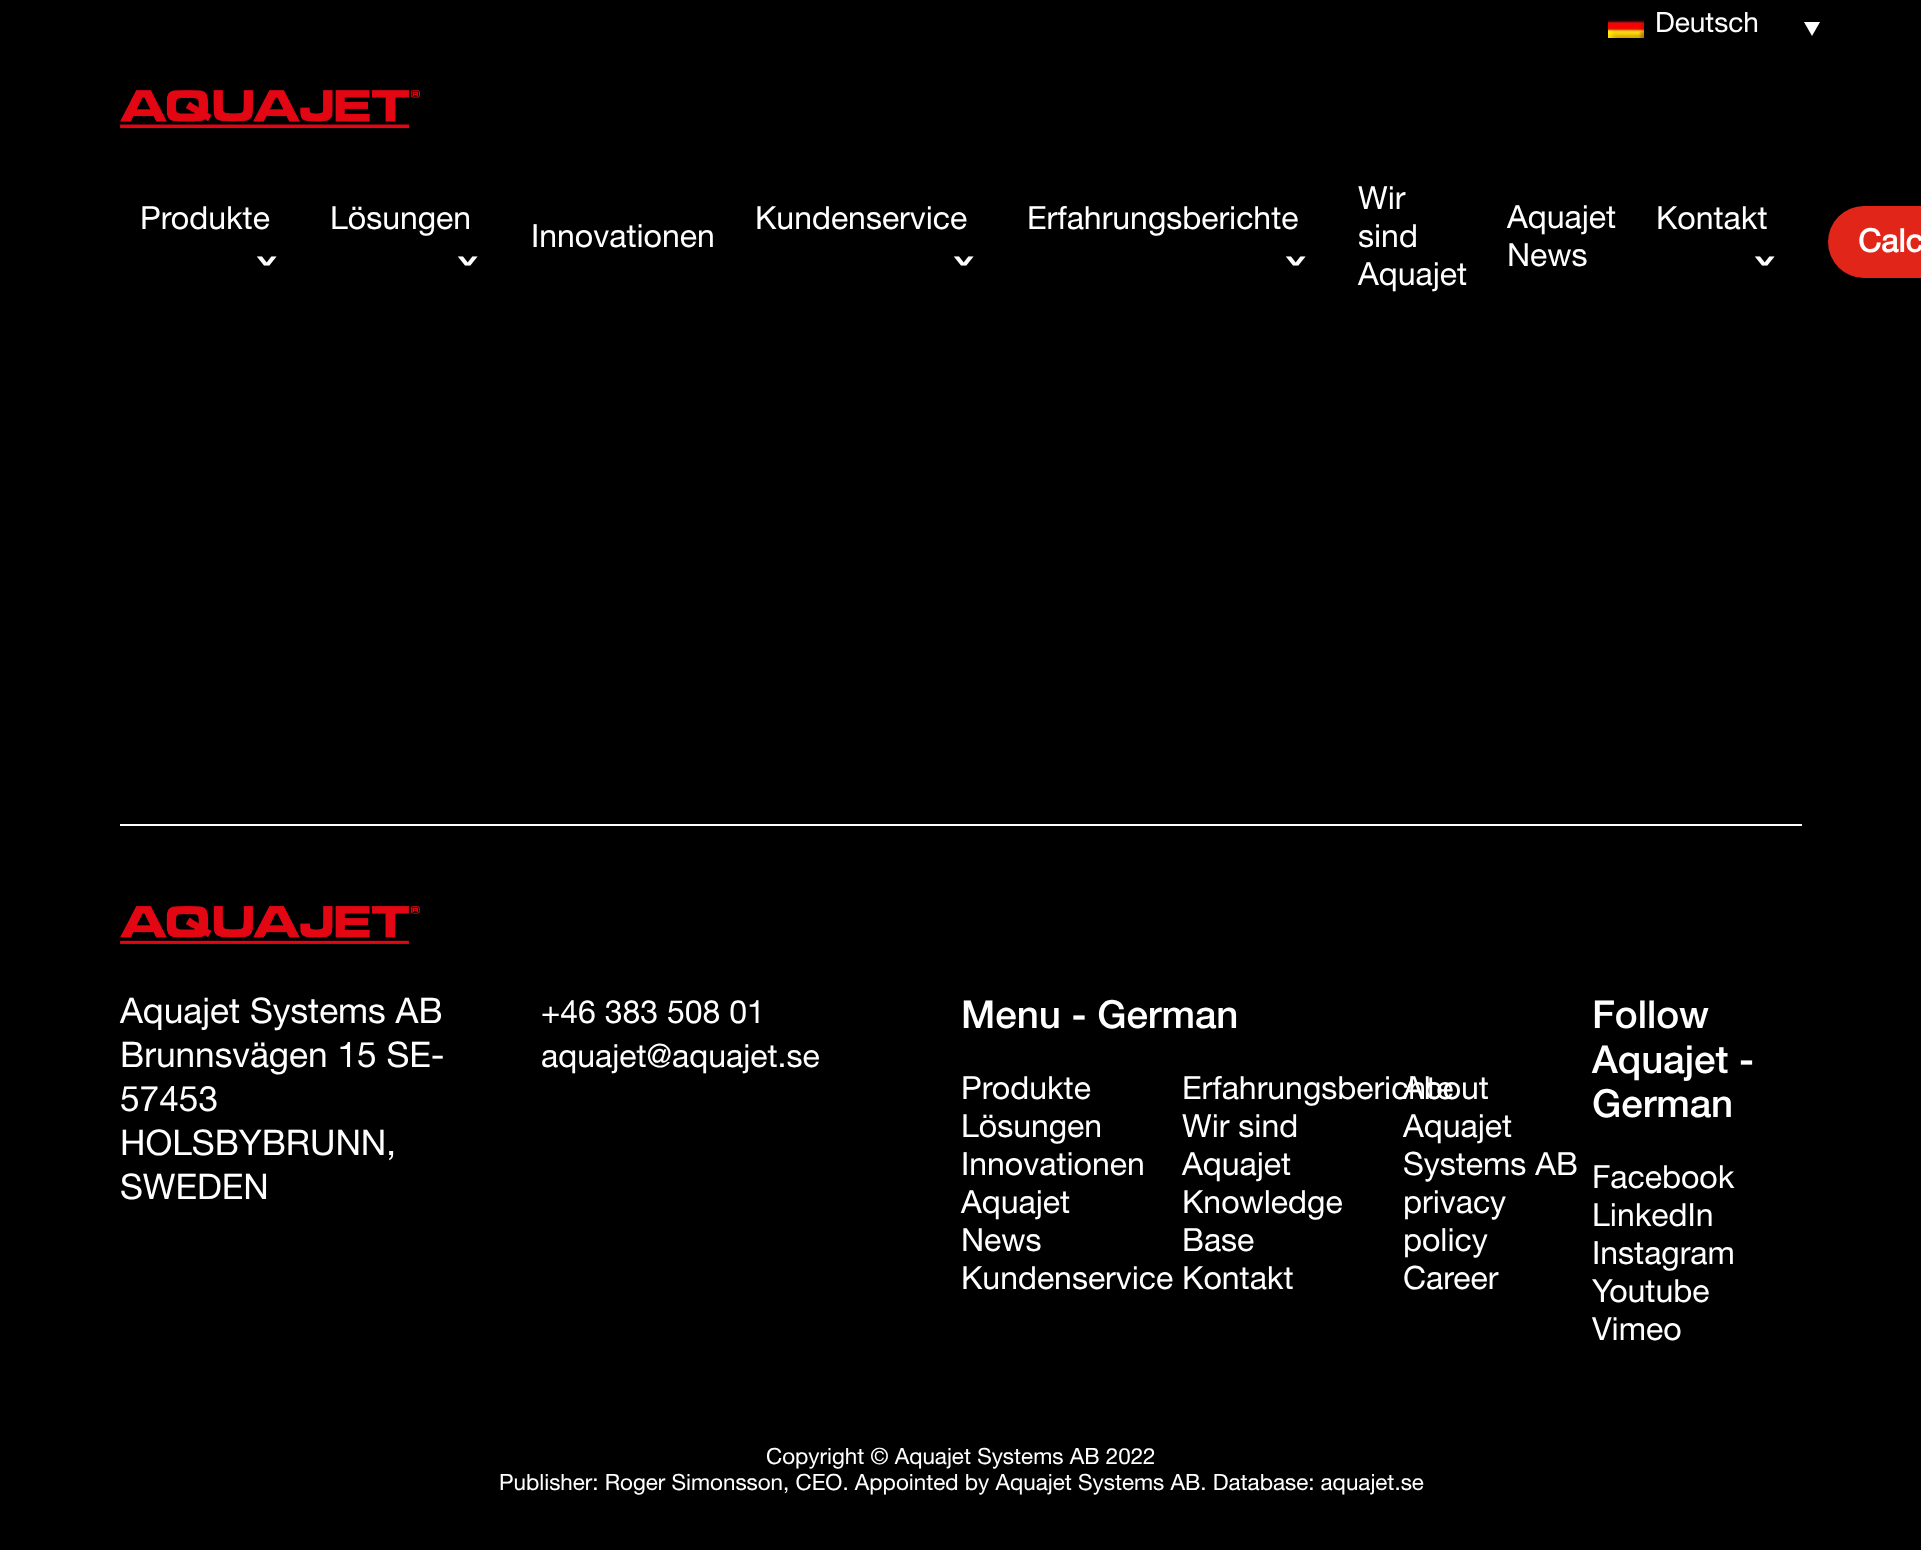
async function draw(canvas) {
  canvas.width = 1921
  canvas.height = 1550
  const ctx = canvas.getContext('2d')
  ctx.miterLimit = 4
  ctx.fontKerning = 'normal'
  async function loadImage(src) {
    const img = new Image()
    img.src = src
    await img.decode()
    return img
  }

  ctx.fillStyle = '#000'
  ctx.fillRect(0, 0, 1921, 1550)
  ctx.drawImage(await loadImage('image0.png'), 1608, 19, 36, 19)
  ctx.font = '28px Helvetica Neue'
  ctx.fillStyle = '#fff'
  ctx.fillText('Deutsch', 1655, 32)
  ctx.beginPath()
  ctx.moveTo(1804, 22)
  ctx.lineTo(1820, 22)
  ctx.lineTo(1812, 36)
  ctx.closePath()
  ctx.fill()
  ctx.drawImage(await loadImage('image1.png'), 120, 90, 300, 39)
  ctx.font = '32px Helvetica Neue'
  ctx.fillText('Produkte', 140, 229)
  ctx.font = '60px Helvetica Neue'
  ctx.save()
  ctx.translate(250, 253)
  ctx.rotate(90 * Math.PI / 180)
  ctx.fillText('›', 0, 0)
  ctx.restore()
  ctx.font = '32px Helvetica Neue'
  ctx.fillText('Lösungen', 330, 229)
  ctx.font = '60px Helvetica Neue'
  ctx.save()
  ctx.translate(451, 253)
  ctx.rotate(90 * Math.PI / 180)
  ctx.fillText('›', 0, 0)
  ctx.restore()
  ctx.font = '32px Helvetica Neue'
  ctx.fillText('Innovationen', 531, 247)
  ctx.fillText('Kundenservice', 755, 229)
  ctx.font = '60px Helvetica Neue'
  ctx.save()
  ctx.translate(947, 253)
  ctx.rotate(90 * Math.PI / 180)
  ctx.fillText('›', 0, 0)
  ctx.restore()
  ctx.font = '32px Helvetica Neue'
  ctx.fillText('Erfahrungsberichte', 1027, 229)
  ctx.font = '60px Helvetica Neue'
  ctx.save()
  ctx.translate(1279, 253)
  ctx.rotate(90 * Math.PI / 180)
  ctx.fillText('›', 0, 0)
  ctx.restore()
  ctx.font = '32px Helvetica Neue'
  ctx.fillText('Wir', 1358, 209)
  ctx.fillText('sind', 1358, 247)
  ctx.fillText('Aquajet', 1358, 285)
  ctx.fillText('Aquajet', 1507, 228)
  ctx.fillText('News', 1507, 266)
  ctx.fillText('Kontakt', 1656, 229)
  ctx.font = '60px Helvetica Neue'
  ctx.save()
  ctx.translate(1748, 253)
  ctx.rotate(90 * Math.PI / 180)
  ctx.fillText('›', 0, 0)
  ctx.restore()
  ctx.fillStyle = '#e12519'
  ctx.beginPath()
  ctx.roundRect(1828, 206, 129, 72, 36)
  ctx.fill()
  ctx.font = 'bold 32px Helvetica Neue'
  ctx.fillStyle = '#fff'
  ctx.fillText('Calc', 1858, 252)
  ctx.fillRect(120, 824, 1682, 2)
  ctx.drawImage(await loadImage('image2.png'), 120, 906, 300, 38)
  ctx.font = '35.25px Helvetica Neue'
  ctx.fillText('Aquajet Systems AB', 120, 1023)
  ctx.fillText('Brunnsvägen 15 SE-', 120, 1067)
  ctx.fillText('57453', 120, 1111)
  ctx.fillText('HOLSBYBRUNN,', 120, 1155)
  ctx.fillText('SWEDEN', 120, 1199)
  ctx.font = '32px Helvetica Neue'
  ctx.fillText('+46 383 508 01', 541, 1023)
  ctx.fillText('aquajet@aquajet.se', 541, 1067)
  ctx.font = '500 38.5px Helvetica Neue'
  ctx.fillText('Menu - German', 961, 1028)
  ctx.font = '32px Helvetica Neue'
  ctx.fillText('Produkte', 961, 1099)
  ctx.fillText('Erfahrungsberichte', 1182, 1099)
  ctx.fillText('About', 1403, 1099)
  ctx.fillText('Aquajet', 1403, 1137)
  ctx.fillText('Systems AB', 1403, 1175)
  ctx.fillText('privacy', 1403, 1213)
  ctx.fillText('policy', 1403, 1251)
  ctx.fillText('Lösungen', 961, 1137)
  ctx.fillText('Wir sind', 1182, 1137)
  ctx.fillText('Aquajet', 1182, 1175)
  ctx.fillText('Innovationen', 961, 1175)
  ctx.fillText('Aquajet', 961, 1213)
  ctx.fillText('News', 961, 1251)
  ctx.fillText('Knowledge', 1182, 1213)
  ctx.fillText('Base', 1182, 1251)
  ctx.fillText('Kundenservice Kontakt', 961, 1289)
  ctx.fillText('Career', 1403, 1289)
  ctx.font = '500 38.5px Helvetica Neue'
  ctx.fillText('Follow', 1592, 1028)
  ctx.fillText('Aquajet -', 1592, 1073)
  ctx.fillText('German', 1592, 1117)
  ctx.font = '32px Helvetica Neue'
  ctx.fillText('Facebook', 1592, 1188)
  ctx.fillText('LinkedIn', 1592, 1226)
  ctx.fillText('Instagram', 1592, 1264)
  ctx.fillText('Youtube', 1592, 1302)
  ctx.fillText('Vimeo', 1592, 1340)
  ctx.font = '22.4px Helvetica Neue'
  ctx.fillText('Copyright © Aquajet Systems AB 2022', 766, 1464)
  ctx.fillText('Publisher: Roger Simonsson, CEO. Appointed by Aquajet Systems AB. Database: aquajet.se', 499, 1490)
}

draw(document.querySelector('canvas'))
